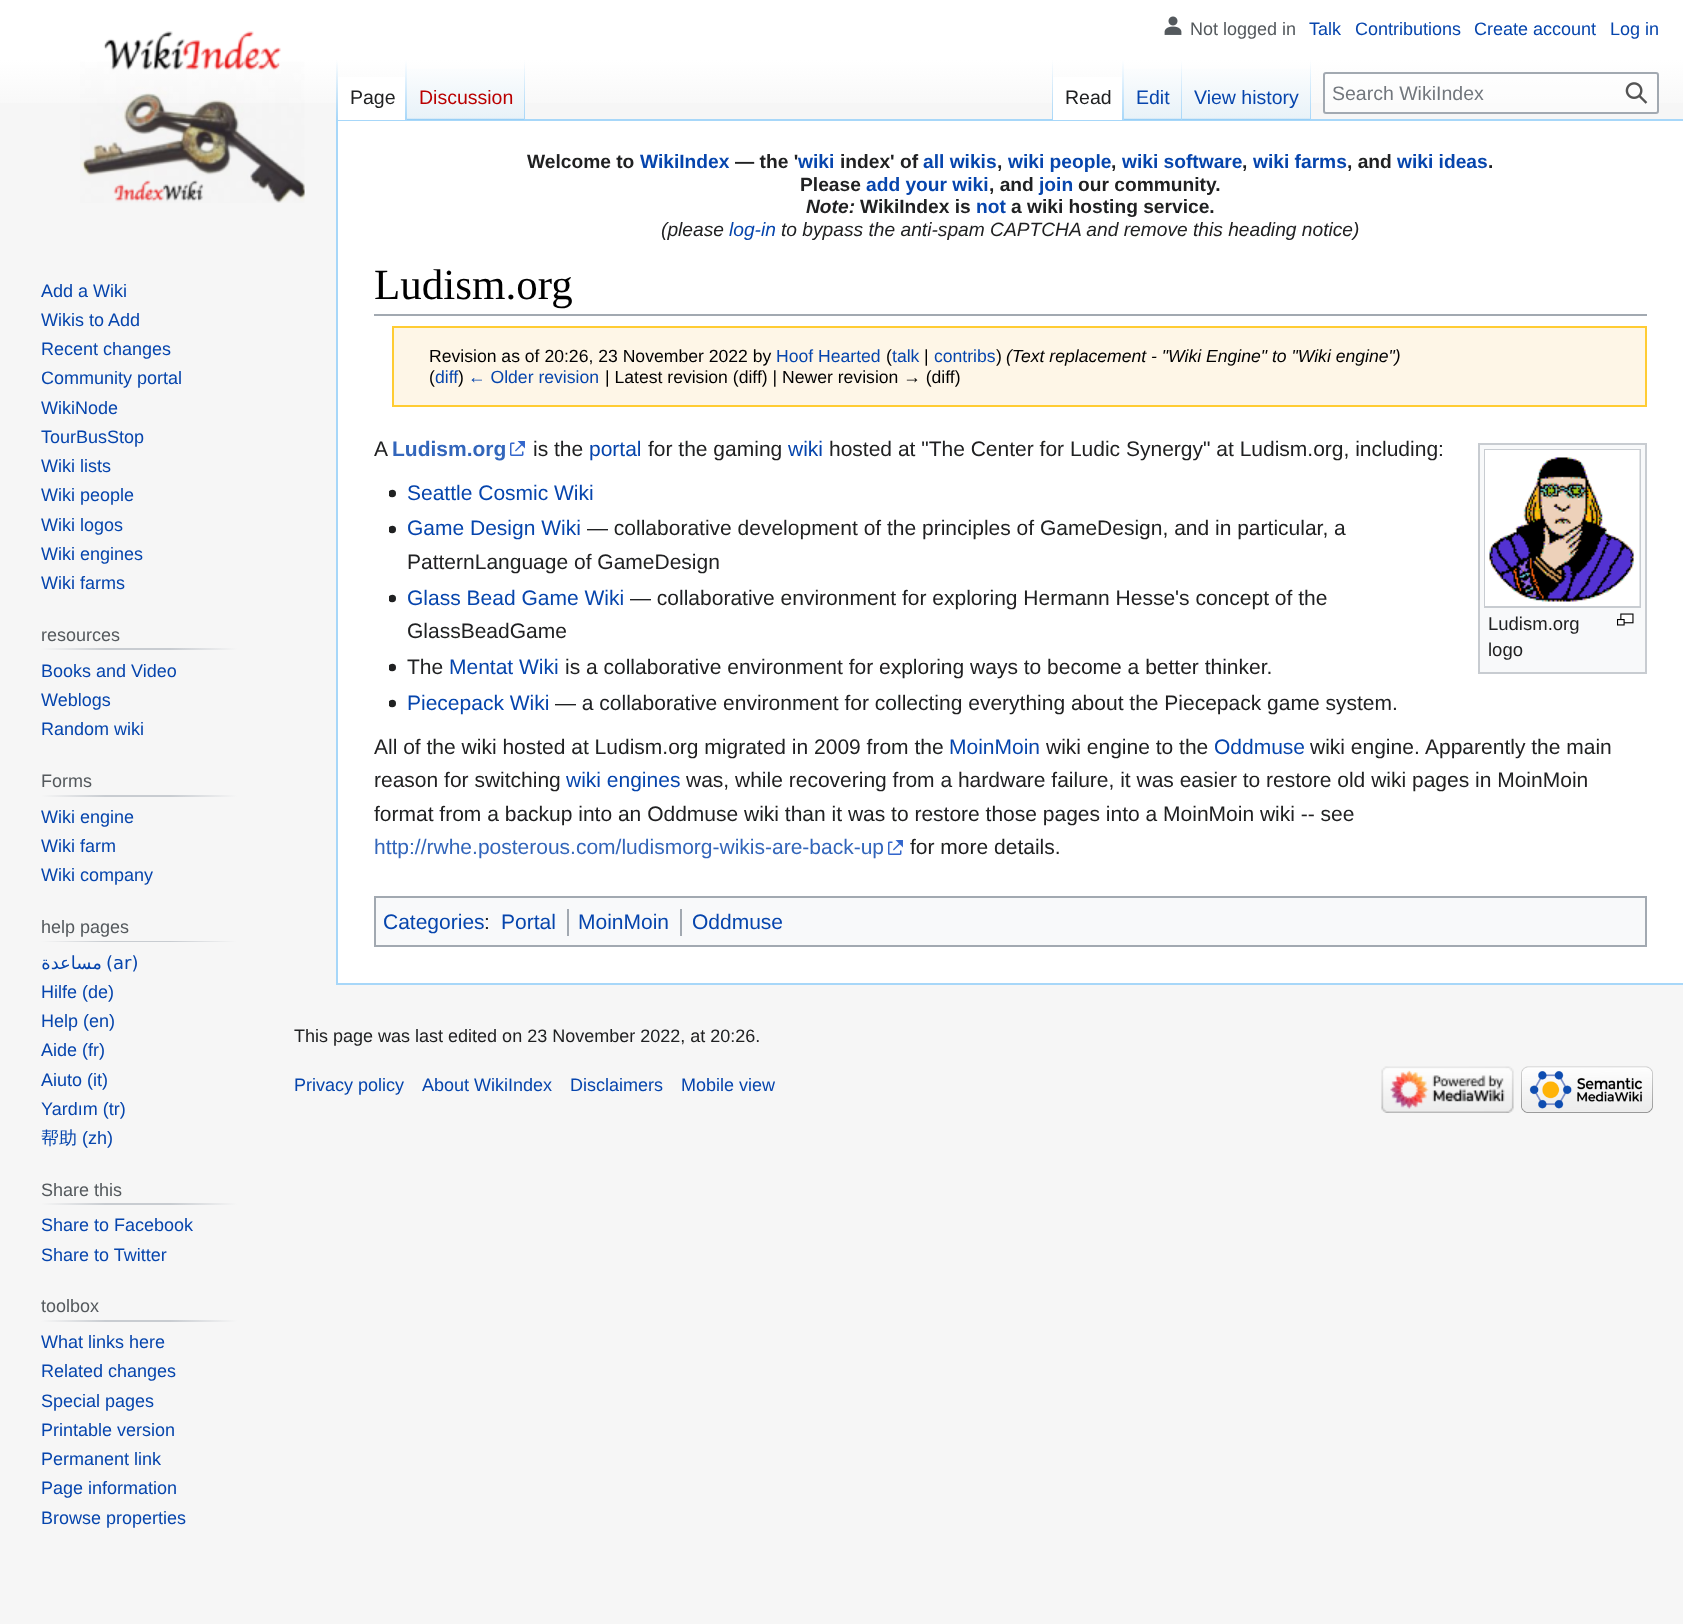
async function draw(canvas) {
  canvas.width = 1683
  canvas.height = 1624
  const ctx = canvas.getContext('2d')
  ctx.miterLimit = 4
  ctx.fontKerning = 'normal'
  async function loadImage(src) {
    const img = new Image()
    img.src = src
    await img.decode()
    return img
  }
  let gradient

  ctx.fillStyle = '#f6f6f6'
  ctx.fillRect(0, 0, 1683, 1624)
  gradient = ctx.createLinearGradient(842, 0, 842, 120)
  gradient.addColorStop(0.5, '#fff')
  gradient.addColorStop(1, '#f6f6f6')
  ctx.fillStyle = gradient
  ctx.fillRect(0, 0, 1683, 103)
  ctx.drawImage(await loadImage('image0.png'), 1164, 16, 18, 19)
  ctx.font = '18px Liberation Sans'
  ctx.fillStyle = '#54595d'
  ctx.fillText('Not logged in', 1190, 35)
  ctx.fillStyle = '#0645ad'
  ctx.fillText('Talk', 1309, 35)
  ctx.fillText('Contributions', 1355, 35)
  ctx.fillText('Create account', 1474, 35)
  ctx.fillText('Log in', 1610, 35)
  ctx.fillStyle = '#a7d7f9'
  ctx.fillRect(336, 119, 1347, 2)
  ctx.fillRect(336, 983, 1347, 2)
  ctx.fillRect(336, 119, 2, 865)
  gradient = ctx.createLinearGradient(337, 60, 337, 120)
  gradient.addColorStop(0, '#a7d7f900')
  gradient.addColorStop(1, '#a7d7f9')
  ctx.fillStyle = gradient
  ctx.fillRect(336, 60, 2, 60)
  ctx.fillStyle = '#fff'
  ctx.fillRect(338, 77, 67, 43)
  gradient = ctx.createLinearGradient(406, 60, 406, 120)
  gradient.addColorStop(0, '#fff')
  gradient.addColorStop(1, '#a7d7f9')
  ctx.fillStyle = gradient
  ctx.fillRect(405, 60, 2, 60)
  ctx.font = '19.5px Liberation Sans'
  ctx.fillStyle = '#202122'
  ctx.fillText('Page', 350, 104)
  gradient = ctx.createLinearGradient(466, 120, 466, 60)
  gradient.addColorStop(0, '#77c1f6')
  gradient.addColorStop(0.03, '#e8f2f8')
  gradient.addColorStop(1, '#fff')
  ctx.fillStyle = gradient
  ctx.fillRect(407, 69, 118, 51)
  gradient = ctx.createLinearGradient(524, 60, 524, 120)
  gradient.addColorStop(0, '#a7d7f900')
  gradient.addColorStop(1, '#a7d7f9')
  ctx.fillStyle = gradient
  ctx.fillRect(524, 60, 1, 60)
  ctx.fillStyle = '#ba0000'
  ctx.fillText('Discussion', 419, 104)
  gradient = ctx.createLinearGradient(1052, 60, 1052, 120)
  gradient.addColorStop(0, '#a7d7f900')
  gradient.addColorStop(1, '#a7d7f9')
  ctx.fillStyle = gradient
  ctx.fillRect(1052, 60, 1, 60)
  ctx.fillStyle = '#fff'
  ctx.fillRect(1053, 77, 69, 43)
  gradient = ctx.createLinearGradient(1123, 60, 1123, 120)
  gradient.addColorStop(0, '#fff')
  gradient.addColorStop(1, '#a7d7f9')
  ctx.fillStyle = gradient
  ctx.fillRect(1122, 60, 2, 60)
  ctx.fillStyle = '#202122'
  ctx.fillText('Read', 1065, 104)
  gradient = ctx.createLinearGradient(1153, 120, 1153, 60)
  gradient.addColorStop(0, '#77c1f6')
  gradient.addColorStop(0.03, '#e8f2f8')
  gradient.addColorStop(1, '#fff')
  ctx.fillStyle = gradient
  ctx.fillRect(1124, 69, 58, 51)
  gradient = ctx.createLinearGradient(1181, 60, 1181, 120)
  gradient.addColorStop(0, '#a7d7f900')
  gradient.addColorStop(1, '#a7d7f9')
  ctx.fillStyle = gradient
  ctx.fillRect(1181, 60, 1, 60)
  ctx.fillStyle = '#0645ad'
  ctx.fillText('Edit', 1136, 104)
  gradient = ctx.createLinearGradient(1247, 120, 1247, 60)
  gradient.addColorStop(0, '#77c1f6')
  gradient.addColorStop(0.03, '#e8f2f8')
  gradient.addColorStop(1, '#fff')
  ctx.fillStyle = gradient
  ctx.fillRect(1182, 69, 129, 51)
  gradient = ctx.createLinearGradient(1310, 60, 1310, 120)
  gradient.addColorStop(0, '#a7d7f900')
  gradient.addColorStop(1, '#a7d7f9')
  ctx.fillStyle = gradient
  ctx.fillRect(1310, 60, 1, 60)
  ctx.fillStyle = '#0645ad'
  ctx.fillText('View history', 1194, 104)
  ctx.fillStyle = '#ffffff80'
  ctx.beginPath()
  ctx.roundRect(1324, 73, 334, 40, 2)
  ctx.fill()
  ctx.strokeStyle = '#a2a9b1'
  ctx.lineWidth = 2
  ctx.stroke()
  ctx.fillStyle = '#72777d'
  ctx.fillText('Search WikiIndex', 1332, 100)
  ctx.drawImage(await loadImage('image1.png'), 1625, 82, 23, 22)
  ctx.drawImage(await loadImage('image2.png'), 80, 31, 225, 172)
  ctx.font = '18px Liberation Sans'
  ctx.fillStyle = '#0645ad'
  ctx.fillText('Add a Wiki', 41, 297)
  ctx.fillText('Wikis to Add', 41, 326)
  ctx.fillText('Recent changes', 41, 355)
  ctx.fillText('Community portal', 41, 384)
  ctx.fillText('WikiNode', 41, 414)
  ctx.fillText('TourBusStop', 41, 443)
  ctx.fillText('Wiki lists', 41, 472)
  ctx.fillText('Wiki people', 41, 501)
  ctx.fillText('Wiki logos', 41, 531)
  ctx.fillText('Wiki engines', 41, 560)
  ctx.fillText('Wiki farms', 41, 589)
  gradient = ctx.createLinearGradient(41, 649, 237, 649)
  gradient.addColorStop(0, '#f6f6f6')
  gradient.addColorStop(0.33, '#c8ccd1')
  gradient.addColorStop(0.66, '#c8ccd1')
  gradient.addColorStop(1, '#f6f6f6')
  ctx.fillStyle = gradient
  ctx.fillRect(41, 648, 196, 2)
  ctx.fillStyle = '#54595d'
  ctx.fillText('resources', 41, 641)
  ctx.fillStyle = '#0645ad'
  ctx.fillText('Books and Video', 41, 677)
  ctx.fillText('Weblogs', 41, 706)
  ctx.fillText('Random wiki', 41, 735)
  gradient = ctx.createLinearGradient(41, 796, 237, 796)
  gradient.addColorStop(0, '#f6f6f6')
  gradient.addColorStop(0.33, '#c8ccd1')
  gradient.addColorStop(0.66, '#c8ccd1')
  gradient.addColorStop(1, '#f6f6f6')
  ctx.fillStyle = gradient
  ctx.fillRect(41, 795, 196, 2)
  ctx.fillStyle = '#54595d'
  ctx.fillText('Forms', 41, 787)
  ctx.fillStyle = '#0645ad'
  ctx.fillText('Wiki engine', 41, 823)
  ctx.fillText('Wiki farm', 41, 852)
  ctx.fillText('Wiki company', 41, 881)
  gradient = ctx.createLinearGradient(41, 941, 237, 941)
  gradient.addColorStop(0, '#f6f6f6')
  gradient.addColorStop(0.33, '#c8ccd1')
  gradient.addColorStop(0.66, '#c8ccd1')
  gradient.addColorStop(1, '#f6f6f6')
  ctx.fillStyle = gradient
  ctx.fillRect(41, 941, 196, 1)
  ctx.fillStyle = '#54595d'
  ctx.fillText('help pages', 41, 933)
  ctx.direction = 'rtl'
  ctx.font = '18px DejaVu Sans'
  ctx.fillStyle = '#0645ad'
  ctx.fillText('مساعدة', 102, 969)
  ctx.direction = 'ltr'
  ctx.fillText('(ar)', 106, 969)
  ctx.font = '18px Liberation Sans'
  ctx.fillText('Hilfe (de)', 41, 998)
  ctx.fillText('Help (en)', 41, 1027)
  ctx.fillText('Aide (fr)', 41, 1056)
  ctx.fillText('Aiuto (it)', 41, 1086)
  ctx.fillText('Yardım (tr)', 41, 1115)
  ctx.font = '500 18px WenQuanYi Zen Hei'
  ctx.fillText('帮助', 41, 1144)
  ctx.font = '18px Liberation Sans'
  ctx.fillText('(zh)', 82, 1144)
  gradient = ctx.createLinearGradient(41, 1204, 237, 1204)
  gradient.addColorStop(0, '#f6f6f6')
  gradient.addColorStop(0.33, '#c8ccd1')
  gradient.addColorStop(0.66, '#c8ccd1')
  gradient.addColorStop(1, '#f6f6f6')
  ctx.fillStyle = gradient
  ctx.fillRect(41, 1203, 196, 2)
  ctx.fillStyle = '#54595d'
  ctx.fillText('Share this', 41, 1196)
  ctx.fillStyle = '#0645ad'
  ctx.fillText('Share to Facebook', 41, 1231)
  ctx.fillText('Share to Twitter', 41, 1261)
  gradient = ctx.createLinearGradient(41, 1321, 237, 1321)
  gradient.addColorStop(0, '#f6f6f6')
  gradient.addColorStop(0.33, '#c8ccd1')
  gradient.addColorStop(0.66, '#c8ccd1')
  gradient.addColorStop(1, '#f6f6f6')
  ctx.fillStyle = gradient
  ctx.fillRect(41, 1320, 196, 2)
  ctx.fillStyle = '#54595d'
  ctx.fillText('toolbox', 41, 1312)
  ctx.fillStyle = '#0645ad'
  ctx.fillText('What links here', 41, 1348)
  ctx.fillText('Related changes', 41, 1377)
  ctx.fillText('Special pages', 41, 1407)
  ctx.fillText('Printable version', 41, 1436)
  ctx.fillText('Permanent link', 41, 1465)
  ctx.fillText('Page information', 41, 1494)
  ctx.fillText('Browse properties', 41, 1524)
  ctx.fillStyle = '#fff'
  ctx.fillRect(338, 121, 1345, 862)
  ctx.font = 'bold 19.2px Liberation Sans'
  ctx.fillStyle = '#202122'
  ctx.fillText('Welcome to', 527, 168)
  ctx.fillStyle = '#0645ad'
  ctx.fillText('WikiIndex', 640, 168)
  ctx.fillStyle = '#202122'
  ctx.fillText('— the \'', 735, 168)
  ctx.fillStyle = '#0645ad'
  ctx.fillText('wiki', 798, 168)
  ctx.fillStyle = '#202122'
  ctx.fillText('index\' of', 840, 168)
  ctx.fillStyle = '#0645ad'
  ctx.fillText('all wikis', 923, 168)
  ctx.fillStyle = '#202122'
  ctx.fillText(',', 997, 168)
  ctx.fillStyle = '#0645ad'
  ctx.fillText('wiki people', 1008, 168)
  ctx.fillStyle = '#202122'
  ctx.fillText(',', 1111, 168)
  ctx.fillStyle = '#0645ad'
  ctx.fillText('wiki software', 1122, 168)
  ctx.fillStyle = '#202122'
  ctx.fillText(',', 1242, 168)
  ctx.fillStyle = '#0645ad'
  ctx.fillText('wiki farms', 1253, 168)
  ctx.fillStyle = '#202122'
  ctx.fillText(', and', 1347, 168)
  ctx.fillStyle = '#0645ad'
  ctx.fillText('wiki ideas', 1397, 168)
  ctx.fillStyle = '#202122'
  ctx.fillText('.', 1488, 168)
  ctx.fillText('Please', 800, 191)
  ctx.fillStyle = '#0645ad'
  ctx.fillText('add your wiki', 866, 191)
  ctx.fillStyle = '#202122'
  ctx.fillText(', and', 989, 191)
  ctx.fillStyle = '#0645ad'
  ctx.fillText('join', 1039, 191)
  ctx.fillStyle = '#202122'
  ctx.fillText('our community.', 1078, 191)
  ctx.font = 'italic bold 19.2px Liberation Sans'
  ctx.fillText('Note:', 806, 213)
  ctx.font = 'bold 19.2px Liberation Sans'
  ctx.fillText('WikiIndex is', 860, 213)
  ctx.fillStyle = '#0645ad'
  ctx.fillText('not', 976, 213)
  ctx.fillStyle = '#202122'
  ctx.fillText('a wiki hosting service.', 1011, 213)
  ctx.font = 'italic 19.2px Liberation Sans'
  ctx.fillText('(please', 661, 236)
  ctx.fillStyle = '#0645ad'
  ctx.fillText('log-in', 729, 236)
  ctx.fillStyle = '#202122'
  ctx.fillText('to bypass the anti-spam CAPTCHA and remove this heading notice)', 781, 236)
  ctx.fillStyle = '#a2a9b1'
  ctx.fillRect(374, 314, 1273, 2)
  ctx.font = '43px Liberation Serif'
  ctx.fillStyle = '#000'
  ctx.fillText('Ludism.org', 374, 299)
  ctx.fillStyle = '#fef6e7'
  ctx.beginPath()
  ctx.rect(393, 327, 1253, 79)
  ctx.fill()
  ctx.strokeStyle = '#fc3'
  ctx.stroke()
  ctx.font = '17.6px Liberation Sans'
  ctx.fillStyle = '#000'
  ctx.fillText('Revision as of 20:26, 23 November 2022 by', 429, 362)
  ctx.fillStyle = '#0645ad'
  ctx.fillText('Hoof Hearted', 776, 362)
  ctx.fillStyle = '#000'
  ctx.fillText('(', 886, 362)
  ctx.fillStyle = '#0645ad'
  ctx.fillText('talk', 892, 362)
  ctx.fillStyle = '#000'
  ctx.fillText('|', 924, 362)
  ctx.fillStyle = '#0645ad'
  ctx.fillText('contribs', 934, 362)
  ctx.fillStyle = '#000'
  ctx.fillText(')', 996, 362)
  ctx.font = 'italic 17.6px Liberation Sans'
  ctx.fillText('(Text replacement - "Wiki Engine" to "Wiki engine")', 1006, 362)
  ctx.font = '17.6px Liberation Sans'
  ctx.fillText('(', 429, 383)
  ctx.fillStyle = '#0645ad'
  ctx.fillText('diff', 435, 383)
  ctx.fillStyle = '#000'
  ctx.fillText(')', 458, 383)
  ctx.fillStyle = '#0645ad'
  ctx.fillText('← Older revision', 468, 383)
  ctx.fillStyle = '#000'
  ctx.fillText('| Latest revision (diff) | Newer revision → (diff)', 605, 383)
  ctx.font = '21px Liberation Sans'
  ctx.fillStyle = '#202122'
  ctx.fillText('A', 374, 456)
  ctx.font = 'bold 21px Liberation Sans'
  ctx.fillStyle = '#36b'
  ctx.fillText('Ludism.org', 392, 456)
  ctx.drawImage(await loadImage('image3.png'), 510, 441, 15, 15)
  ctx.font = '21px Liberation Sans'
  ctx.fillStyle = '#202122'
  ctx.fillText('is the', 533, 456)
  ctx.fillStyle = '#0645ad'
  ctx.fillText('portal', 589, 456)
  ctx.fillStyle = '#202122'
  ctx.fillText('for the gaming', 648, 456)
  ctx.fillStyle = '#0645ad'
  ctx.fillText('wiki', 788, 456)
  ctx.fillStyle = '#202122'
  ctx.fillText('hosted at "The Center for Ludic Synergy" at Ludism.org, including:', 829, 456)
  ctx.drawImage(await loadImage('image4.png'), 389, 489, 7, 9)
  ctx.fillStyle = '#0645ad'
  ctx.fillText('Seattle Cosmic Wiki', 407, 500)
  ctx.drawImage(await loadImage('image4.png'), 389, 525, 7, 9)
  ctx.fillText('Game Design Wiki', 407, 535)
  ctx.fillStyle = '#202122'
  ctx.fillText('— collaborative development of the principles of GameDesign, and in particular, a', 587, 535)
  ctx.fillText('PatternLanguage of GameDesign', 407, 569)
  ctx.drawImage(await loadImage('image4.png'), 389, 594, 7, 9)
  ctx.fillStyle = '#0645ad'
  ctx.fillText('Glass Bead Game Wiki', 407, 605)
  ctx.fillStyle = '#202122'
  ctx.fillText('— collaborative environment for exploring Hermann Hesse\'s concept of the', 630, 605)
  ctx.fillText('GlassBeadGame', 407, 638)
  ctx.drawImage(await loadImage('image4.png'), 389, 663, 7, 9)
  ctx.fillText('The', 407, 674)
  ctx.fillStyle = '#0645ad'
  ctx.fillText('Mentat Wiki', 449, 674)
  ctx.fillStyle = '#202122'
  ctx.fillText('is a collaborative environment for exploring ways to become a better thinker.', 565, 674)
  ctx.drawImage(await loadImage('image4.png'), 389, 699, 7, 9)
  ctx.fillStyle = '#0645ad'
  ctx.fillText('Piecepack Wiki', 407, 710)
  ctx.fillStyle = '#202122'
  ctx.fillText('— a collaborative environment for collecting everything about the Piecepack game system.', 555, 710)
  ctx.fillStyle = '#f8f9fa'
  ctx.beginPath()
  ctx.rect(1479, 444, 167, 229)
  ctx.fill()
  ctx.strokeStyle = '#c8ccd1'
  ctx.stroke()
  ctx.strokeRect(1485, 450, 155, 157)
  ctx.drawImage(await loadImage('image5.png'), 1485, 450, 155, 156)
  ctx.font = '18.5px Liberation Sans'
  ctx.fillStyle = '#202122'
  ctx.fillText('Ludism.org', 1488, 630)
  ctx.drawImage(await loadImage('image6.png'), 1617, 613, 17, 13)
  ctx.fillText('logo', 1488, 656)
  ctx.font = '21px Liberation Sans'
  ctx.fillText('All of the wiki hosted at Ludism.org migrated in 2009 from the', 374, 754)
  ctx.fillStyle = '#0645ad'
  ctx.fillText('MoinMoin', 949, 754)
  ctx.fillStyle = '#202122'
  ctx.fillText('wiki engine to the', 1046, 754)
  ctx.fillStyle = '#0645ad'
  ctx.fillText('Oddmuse', 1214, 754)
  ctx.fillStyle = '#202122'
  ctx.fillText('wiki engine.', 1310, 754)
  ctx.fillText('Apparently the main', 1425, 754)
  ctx.fillText('reason for switching', 374, 787)
  ctx.fillStyle = '#0645ad'
  ctx.fillText('wiki engines', 566, 787)
  ctx.fillStyle = '#202122'
  ctx.fillText('was, while recovering from a hardware failure, it was easier to restore old wiki pages in MoinMoin', 686, 787)
  ctx.fillText('format from a backup into an Oddmuse wiki than it was to restore those pages into a MoinMoin wiki -- see', 374, 821)
  ctx.fillStyle = '#36b'
  ctx.fillText('http://rwhe.posterous.com/ludismorg-wikis-are-back-up', 374, 854)
  ctx.drawImage(await loadImage('image3.png'), 888, 840, 15, 15)
  ctx.fillStyle = '#202122'
  ctx.fillText('for more details.', 910, 854)
  ctx.fillStyle = '#f8f9fa'
  ctx.beginPath()
  ctx.rect(375, 897, 1271, 49)
  ctx.fill()
  ctx.strokeStyle = '#a2a9b1'
  ctx.stroke()
  ctx.fillStyle = '#0645ad'
  ctx.fillText('Categories', 383, 929)
  ctx.fillStyle = '#202122'
  ctx.fillText(':', 484, 929)
  ctx.fillStyle = '#0645ad'
  ctx.fillText('Portal', 501, 929)
  ctx.fillStyle = '#a2a9b1'
  ctx.fillRect(567, 909, 2, 27)
  ctx.fillStyle = '#0645ad'
  ctx.fillText('MoinMoin', 578, 929)
  ctx.fillStyle = '#a2a9b1'
  ctx.fillRect(680, 909, 2, 27)
  ctx.fillStyle = '#0645ad'
  ctx.fillText('Oddmuse', 692, 929)
  ctx.font = '18px Liberation Sans'
  ctx.fillStyle = '#202122'
  ctx.fillText('This page was last edited on 23 November 2022, at 20:26.', 294, 1042)
  ctx.fillStyle = '#0645ad'
  ctx.fillText('Privacy policy', 294, 1091)
  ctx.fillText('About WikiIndex', 422, 1091)
  ctx.fillText('Disclaimers', 570, 1091)
  ctx.fillText('Mobile view', 681, 1091)
  ctx.drawImage(await loadImage('image7.png'), 1381, 1066, 133, 47)
  ctx.drawImage(await loadImage('image8.png'), 1521, 1066, 132, 47)
}

draw(document.querySelector('canvas'))
